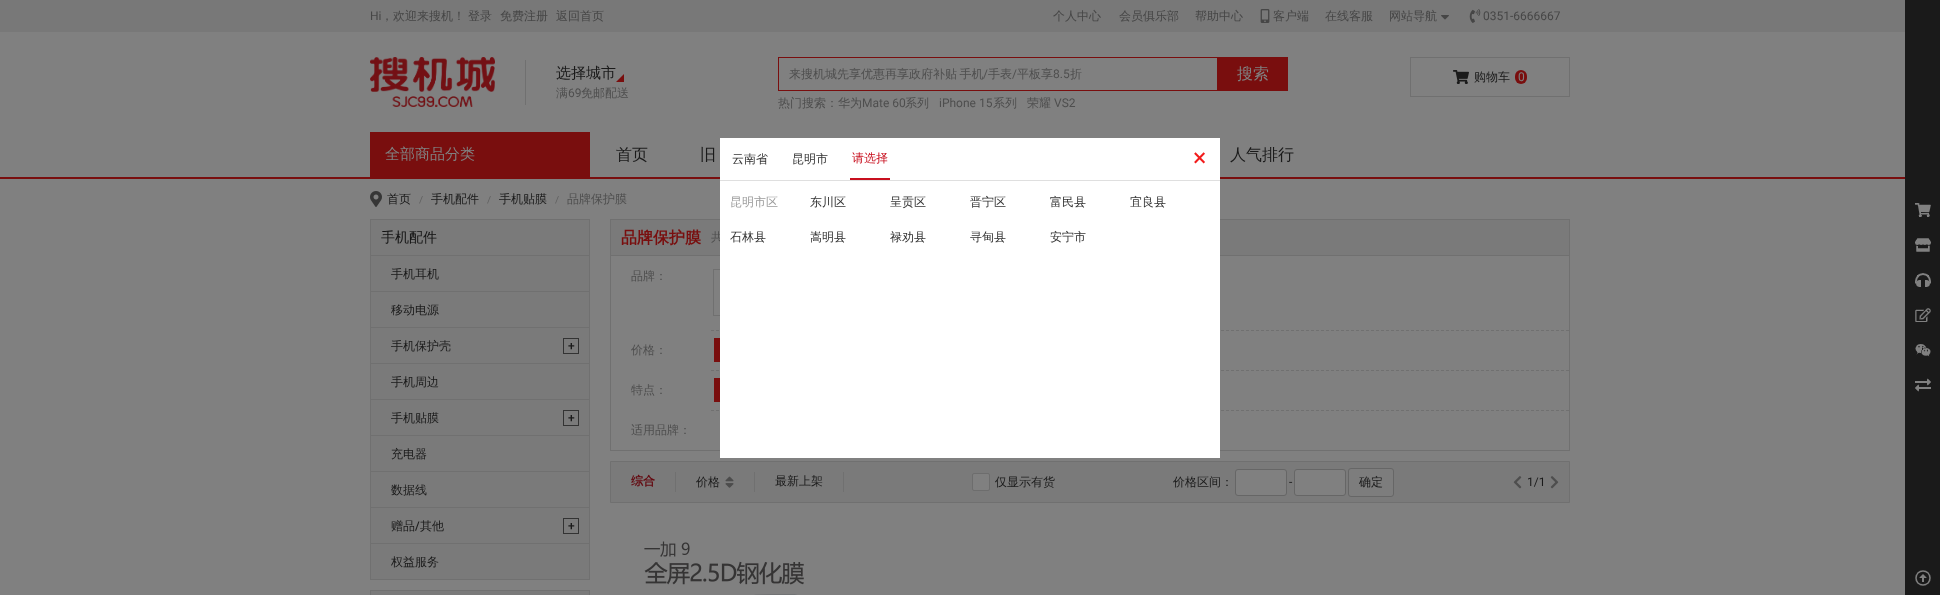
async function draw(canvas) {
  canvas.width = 1940
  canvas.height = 595
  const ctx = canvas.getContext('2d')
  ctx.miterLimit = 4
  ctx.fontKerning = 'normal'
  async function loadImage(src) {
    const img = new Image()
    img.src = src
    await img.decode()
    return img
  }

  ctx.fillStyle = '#808080'
  ctx.fillRect(0, 0, 1940, 595)
  ctx.fillStyle = '#787878'
  ctx.fillRect(0, 0, 1905, 32)
  ctx.font = '12px Roboto'
  ctx.fillStyle = '#464646'
  ctx.fillText('Hi', 370, 20)
  ctx.font = '500 12px WenQuanYi Zen Hei'
  ctx.fillText('，欢迎来搜机！', 381, 20)
  ctx.fillText('登录', 468, 20)
  ctx.fillText('免费注册', 500, 20)
  ctx.fillText('返回首页', 556, 20)
  ctx.fillText('个人中心', 1053, 20)
  ctx.fillText('会员俱乐部', 1119, 20)
  ctx.fillText('帮助中心', 1195, 20)
  ctx.drawImage(await loadImage('image0.png'), 1260, 9, 10, 14)
  ctx.fillText('客户端', 1273, 20)
  ctx.fillText('在线客服', 1325, 20)
  ctx.fillText('网站导航', 1389, 20)
  ctx.drawImage(await loadImage('image1.png'), 1441, 15, 8, 5)
  ctx.drawImage(await loadImage('image2.png'), 1469, 9, 12, 14)
  ctx.font = '12px Roboto'
  ctx.fillText('0351-6666667', 1483, 20)
  ctx.fillStyle = '#790e0e'
  ctx.fillRect(0, 177, 1905, 2)
  ctx.drawImage(await loadImage('image3.png'), 370, 57, 125, 50)
  ctx.fillStyle = '#707070'
  ctx.fillRect(525, 60, 1, 45)
  ctx.font = '500 15px WenQuanYi Zen Hei'
  ctx.fillStyle = '#1a1a1a'
  ctx.fillText('选择城市', 556, 78)
  ctx.fillStyle = '#790e0e'
  ctx.beginPath()
  ctx.moveTo(624, 82)
  ctx.lineTo(616, 82)
  ctx.lineTo(624, 74)
  ctx.closePath()
  ctx.fill()
  ctx.strokeStyle = '#707070'
  ctx.strokeRect(610.5, 219.5, 959, 231)
  ctx.fillStyle = '#7a7a7a'
  ctx.fillRect(611, 220, 958, 35)
  ctx.fillStyle = '#707070'
  ctx.fillRect(611, 255, 958, 1)
  ctx.font = '500 12px WenQuanYi Zen Hei'
  ctx.fillStyle = '#4e4e4e'
  ctx.fillText('共', 711, 241)
  ctx.beginPath()
  ctx.moveTo(711, 330.5)
  ctx.lineTo(1569, 330.5)
  ctx.setLineDash([3, 2])
  ctx.stroke()
  ctx.setLineDash([])
  ctx.strokeRect(713.5, 269.5, 106, 46)
  ctx.beginPath()
  ctx.moveTo(711, 370.5)
  ctx.lineTo(1569, 370.5)
  ctx.setLineDash([3, 2])
  ctx.stroke()
  ctx.beginPath()
  ctx.moveTo(711, 410.5)
  ctx.lineTo(1569, 410.5)
  ctx.stroke()
  ctx.fillStyle = '#fff'
  ctx.fillRect(720, 138, 500, 320)
  ctx.fillStyle = '#dfdfdf'
  ctx.fillRect(720, 180, 500, 1)
  ctx.fillStyle = '#333'
  ctx.fillText('云南省', 732, 163)
  ctx.fillText('昆明市', 792, 163)
  ctx.fillStyle = '#c80f1e'
  ctx.fillRect(850, 178, 40, 2)
  ctx.fillText('请选择', 852, 162)
  ctx.fillStyle = '#9c9c9c'
  ctx.fillText('昆明市区', 730, 206)
  ctx.fillStyle = '#333'
  ctx.fillText('东川区', 810, 206)
  ctx.fillText('呈贡区', 890, 206)
  ctx.fillText('晋宁区', 970, 206)
  ctx.fillText('富民县', 1050, 206)
  ctx.fillText('宜良县', 1130, 206)
  ctx.fillText('石林县', 730, 241)
  ctx.fillText('嵩明县', 810, 241)
  ctx.fillText('禄劝县', 890, 241)
  ctx.fillText('寻甸县', 970, 241)
  ctx.fillText('安宁市', 1050, 241)
  ctx.font = '25px Roboto'
  ctx.fillStyle = '#f21c1c'
  ctx.fillText('×', 1193, 166)
  ctx.font = '500 12px WenQuanYi Zen Hei'
  ctx.fillStyle = '#4e4e4e'
  ctx.fillText('满', 556, 97)
  ctx.font = '12px Roboto'
  ctx.fillText('69', 568, 97)
  ctx.font = '500 12px WenQuanYi Zen Hei'
  ctx.fillText('免邮配送', 581, 97)
  ctx.strokeStyle = '#790e0e'
  ctx.setLineDash([])
  ctx.strokeRect(778.5, 57.5, 439, 33)
  ctx.wordSpacing = '-1px'
  ctx.fillText('来搜机城先享优惠再享政府补贴 手机', 789, 78)
  ctx.wordSpacing = '0px'
  ctx.font = '12px Roboto'
  ctx.fillText('/', 983, 78)
  ctx.font = '500 12px WenQuanYi Zen Hei'
  ctx.fillText('手表', 988, 78)
  ctx.font = '12px Roboto'
  ctx.fillText('/', 1012, 78)
  ctx.font = '500 12px WenQuanYi Zen Hei'
  ctx.fillText('平板享', 1017, 78)
  ctx.font = '12px Roboto'
  ctx.fillText('8.5', 1053, 78)
  ctx.font = '500 12px WenQuanYi Zen Hei'
  ctx.fillText('折', 1070, 78)
  ctx.fillStyle = '#790e0e'
  ctx.fillRect(1218, 57, 70, 34)
  ctx.font = '500 16px WenQuanYi Zen Hei'
  ctx.fillStyle = '#808080'
  ctx.fillText('搜索', 1237, 79)
  ctx.font = '500 12px WenQuanYi Zen Hei'
  ctx.fillStyle = '#4e4e4e'
  ctx.fillText('热门搜索：华为', 778, 107)
  ctx.font = '12px Roboto'
  ctx.fillText('Mate 60', 862, 107)
  ctx.font = '500 12px WenQuanYi Zen Hei'
  ctx.fillText('系列', 905, 107)
  ctx.font = '12px Roboto'
  ctx.fillText('iPhone 15', 939, 107)
  ctx.font = '500 12px WenQuanYi Zen Hei'
  ctx.fillText('系列', 993, 107)
  ctx.fillText('荣耀', 1027, 107)
  ctx.font = '12px Roboto'
  ctx.fillText('VS2', 1054, 107)
  ctx.strokeStyle = '#707070'
  ctx.strokeRect(1410.5, 57.5, 159, 39)
  ctx.drawImage(await loadImage('image4.png'), 1453, 70, 16, 14)
  ctx.font = '500 12px WenQuanYi Zen Hei'
  ctx.fillStyle = '#1a1a1a'
  ctx.fillText('购物车', 1474, 81)
  ctx.fillStyle = '#790e0e'
  ctx.beginPath()
  ctx.roundRect(1515, 70, 12, 14, 6)
  ctx.fill()
  ctx.font = '12px Roboto'
  ctx.fillStyle = '#808080'
  ctx.fillText('0', 1518, 81)
  ctx.fillStyle = '#790e0e'
  ctx.fillRect(370, 132, 220, 45)
  ctx.font = '500 15px WenQuanYi Zen Hei'
  ctx.fillStyle = '#808080'
  ctx.fillText('全部商品分类', 385, 159)
  ctx.font = '500 16px WenQuanYi Zen Hei'
  ctx.fillStyle = '#1a1a1a'
  ctx.fillText('首页', 616, 160)
  ctx.fillText('旧', 700, 160)
  ctx.fillText('人气排行', 1230, 160)
  ctx.drawImage(await loadImage('image5.png'), 370, 191, 12, 16)
  ctx.font = '500 12px WenQuanYi Zen Hei'
  ctx.fillText('首页', 387, 203)
  ctx.font = '10px Roboto'
  ctx.fillStyle = '#5f5f5f'
  ctx.fillText('/', 419, 203)
  ctx.font = '500 12px WenQuanYi Zen Hei'
  ctx.fillStyle = '#1a1a1a'
  ctx.fillText('手机配件', 431, 203)
  ctx.font = '10px Roboto'
  ctx.fillStyle = '#5f5f5f'
  ctx.fillText('/', 487, 203)
  ctx.font = '500 12px WenQuanYi Zen Hei'
  ctx.fillStyle = '#1a1a1a'
  ctx.fillText('手机贴膜', 499, 203)
  ctx.font = '10px Roboto'
  ctx.fillStyle = '#5f5f5f'
  ctx.fillText('/', 555, 203)
  ctx.font = '500 12px WenQuanYi Zen Hei'
  ctx.fillStyle = '#4e4e4e'
  ctx.fillText('品牌保护膜', 567, 203)
  ctx.strokeRect(370.5, 219.5, 219, 360)
  ctx.fillStyle = '#7a7a7a'
  ctx.fillRect(371, 220, 218, 35)
  ctx.fillStyle = '#707070'
  ctx.fillRect(371, 255, 218, 1)
  ctx.font = '500 14px WenQuanYi Zen Hei'
  ctx.fillStyle = '#121212'
  ctx.fillText('手机配件', 381, 242)
  ctx.fillStyle = '#707070'
  ctx.fillRect(371, 291, 218, 1)
  ctx.fillStyle = '#7a7a7a'
  ctx.fillRect(371, 256, 218, 35)
  ctx.font = '500 12px WenQuanYi Zen Hei'
  ctx.fillStyle = '#1a1a1a'
  ctx.fillText('手机耳机', 391, 278)
  ctx.fillStyle = '#707070'
  ctx.fillRect(371, 327, 218, 1)
  ctx.fillStyle = '#7a7a7a'
  ctx.fillRect(371, 292, 218, 35)
  ctx.fillStyle = '#1a1a1a'
  ctx.fillText('移动电源', 391, 314)
  ctx.fillStyle = '#707070'
  ctx.fillRect(371, 363, 218, 1)
  ctx.fillStyle = '#7a7a7a'
  ctx.fillRect(371, 328, 218, 35)
  ctx.fillStyle = '#1a1a1a'
  ctx.fillText('手机保护壳', 391, 350)
  ctx.strokeStyle = '#333'
  ctx.strokeRect(563.5, 338.5, 15, 15)
  ctx.font = '500 12px Roboto'
  ctx.fillText('+', 568, 350)
  ctx.fillStyle = '#707070'
  ctx.fillRect(371, 399, 218, 1)
  ctx.fillStyle = '#7a7a7a'
  ctx.fillRect(371, 364, 218, 35)
  ctx.font = '500 12px WenQuanYi Zen Hei'
  ctx.fillStyle = '#1a1a1a'
  ctx.fillText('手机周边', 391, 386)
  ctx.fillStyle = '#707070'
  ctx.fillRect(371, 435, 218, 1)
  ctx.fillStyle = '#7a7a7a'
  ctx.fillRect(371, 400, 218, 35)
  ctx.fillStyle = '#1a1a1a'
  ctx.fillText('手机贴膜', 391, 422)
  ctx.strokeRect(563.5, 410.5, 15, 15)
  ctx.font = '500 12px Roboto'
  ctx.fillText('+', 568, 422)
  ctx.fillStyle = '#707070'
  ctx.fillRect(371, 471, 218, 1)
  ctx.fillStyle = '#7a7a7a'
  ctx.fillRect(371, 436, 218, 35)
  ctx.font = '500 12px WenQuanYi Zen Hei'
  ctx.fillStyle = '#1a1a1a'
  ctx.fillText('充电器', 391, 458)
  ctx.fillStyle = '#707070'
  ctx.fillRect(371, 507, 218, 1)
  ctx.fillStyle = '#7a7a7a'
  ctx.fillRect(371, 472, 218, 35)
  ctx.fillStyle = '#1a1a1a'
  ctx.fillText('数据线', 391, 494)
  ctx.fillStyle = '#707070'
  ctx.fillRect(371, 543, 218, 1)
  ctx.fillStyle = '#7a7a7a'
  ctx.fillRect(371, 508, 218, 35)
  ctx.fillStyle = '#1a1a1a'
  ctx.fillText('赠品', 391, 530)
  ctx.font = '500 12px Roboto'
  ctx.fillText('/', 415, 530)
  ctx.font = '500 12px WenQuanYi Zen Hei'
  ctx.fillText('其他', 420, 530)
  ctx.strokeRect(563.5, 518.5, 15, 15)
  ctx.font = '500 12px Roboto'
  ctx.fillText('+', 568, 530)
  ctx.fillStyle = '#7a7a7a'
  ctx.fillRect(371, 544, 218, 35)
  ctx.font = '500 12px WenQuanYi Zen Hei'
  ctx.fillStyle = '#1a1a1a'
  ctx.fillText('权益服务', 391, 566)
  ctx.strokeStyle = '#707070'
  ctx.strokeRect(370.5, 590.5, 219, 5)
  ctx.fillStyle = '#7a7a7a'
  ctx.fillRect(371, 591, 218, 4)
  ctx.font = 'bold 16px WenQuanYi Zen Hei'
  ctx.fillStyle = '#790e0e'
  ctx.fillText('品牌保护膜', 621, 243)
  ctx.font = '500 12px WenQuanYi Zen Hei'
  ctx.fillStyle = '#4e4e4e'
  ctx.fillText('品牌：', 631, 280)
  ctx.fillText('价格：', 631, 354)
  ctx.fillStyle = '#790e0e'
  ctx.fillRect(714, 338, 6, 24)
  ctx.fillStyle = '#4e4e4e'
  ctx.fillText('特点：', 631, 394)
  ctx.fillStyle = '#790e0e'
  ctx.fillRect(714, 378, 6, 24)
  ctx.fillStyle = '#4e4e4e'
  ctx.fillText('适用品牌：', 631, 434)
  ctx.fillStyle = '#7a7a7a'
  ctx.beginPath()
  ctx.rect(610.5, 461.5, 959, 41)
  ctx.fill()
  ctx.stroke()
  ctx.fillStyle = '#707070'
  ctx.fillRect(675, 472, 1, 20)
  ctx.font = 'bold 12px WenQuanYi Zen Hei'
  ctx.fillStyle = '#64080f'
  ctx.fillText('综合', 631, 485)
  ctx.fillStyle = '#707070'
  ctx.fillRect(754, 472, 1, 20)
  ctx.font = '500 12px WenQuanYi Zen Hei'
  ctx.fillStyle = '#1a1a1a'
  ctx.fillText('价格', 696, 486)
  ctx.drawImage(await loadImage('image6.png'), 725, 476, 9, 6)
  ctx.drawImage(await loadImage('image7.png'), 725, 483, 9, 5)
  ctx.fillStyle = '#707070'
  ctx.fillRect(843, 472, 1, 20)
  ctx.fillStyle = '#1a1a1a'
  ctx.fillText('最新上架', 775, 485)
  ctx.fillStyle = '#808080'
  ctx.beginPath()
  ctx.roundRect(972.5, 473.5, 17, 17, 1.5)
  ctx.fill()
  ctx.strokeStyle = '#6d6d6d'
  ctx.stroke()
  ctx.fillStyle = '#1a1a1a'
  ctx.fillText('仅显示有货', 995, 486)
  ctx.fillText('价格区间：', 1173, 486)
  ctx.fillStyle = '#808080'
  ctx.beginPath()
  ctx.roundRect(1235.5, 469.5, 51, 26, 2.5)
  ctx.fill()
  ctx.strokeStyle = '#666'
  ctx.stroke()
  ctx.font = '12px Roboto'
  ctx.fillStyle = '#1a1a1a'
  ctx.fillText('-', 1289, 486)
  ctx.fillStyle = '#808080'
  ctx.beginPath()
  ctx.roundRect(1294.5, 469.5, 51, 26, 2.5)
  ctx.fill()
  ctx.stroke()
  ctx.fillStyle = '#7d7d7d'
  ctx.beginPath()
  ctx.roundRect(1348.5, 468.5, 45, 28, 2.5)
  ctx.fill()
  ctx.stroke()
  ctx.font = '500 12px WenQuanYi Zen Hei'
  ctx.fillStyle = '#1a1a1a'
  ctx.fillText('确定', 1359, 486)
  ctx.drawImage(await loadImage('image8.png'), 1513, 476, 9, 13)
  ctx.font = '12px Roboto'
  ctx.fillText('1/1', 1527, 486)
  ctx.drawImage(await loadImage('image9.png'), 1550, 476, 9, 13)
  ctx.drawImage(await loadImage('image10.png'), 644, 541, 160, 54)
  ctx.fillRect(1905, 0, 35, 595)
  ctx.drawImage(await loadImage('image11.png'), 1915, 203, 16, 14)
  ctx.drawImage(await loadImage('image12.png'), 1915, 238, 16, 14)
  ctx.drawImage(await loadImage('image13.png'), 1915, 273, 16, 14)
  ctx.drawImage(await loadImage('image14.png'), 1915, 308, 16, 14)
  ctx.drawImage(await loadImage('image15.png'), 1915, 344, 16, 13)
  ctx.drawImage(await loadImage('image16.png'), 1915, 378, 16, 14)
  ctx.drawImage(await loadImage('image17.png'), 1915, 570, 16, 16)
}

draw(document.querySelector('canvas'))
